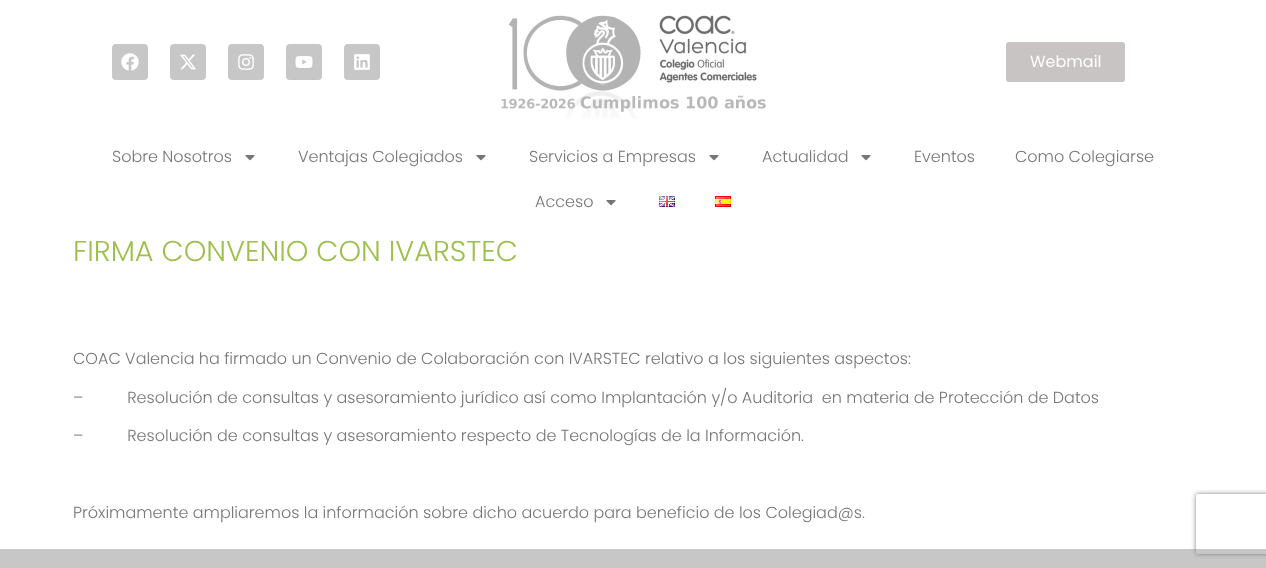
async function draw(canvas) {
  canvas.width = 1266
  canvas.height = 568
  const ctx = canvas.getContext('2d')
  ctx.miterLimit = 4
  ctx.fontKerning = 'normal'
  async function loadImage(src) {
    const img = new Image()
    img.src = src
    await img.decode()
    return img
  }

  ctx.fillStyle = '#fff'
  ctx.fillRect(0, 0, 1266, 568)
  ctx.fillStyle = '#c7c7c7'
  ctx.beginPath()
  ctx.roundRect(112, 44, 36, 36, 4)
  ctx.fill()
  ctx.drawImage(await loadImage('image0.png'), 121, 53, 18, 18)
  ctx.beginPath()
  ctx.roundRect(170, 44, 36, 36, 4)
  ctx.fill()
  ctx.drawImage(await loadImage('image1.png'), 180, 54, 16, 16)
  ctx.beginPath()
  ctx.roundRect(228, 44, 36, 36, 4)
  ctx.fill()
  ctx.drawImage(await loadImage('image2.png'), 238, 54, 16, 16)
  ctx.beginPath()
  ctx.roundRect(286, 44, 36, 36, 4)
  ctx.fill()
  ctx.drawImage(await loadImage('image3.png'), 295, 56, 18, 12)
  ctx.beginPath()
  ctx.roundRect(344, 44, 36, 36, 4)
  ctx.fill()
  ctx.drawImage(await loadImage('image4.png'), 354, 54, 16, 16)
  ctx.drawImage(await loadImage('image5.png'), 501, 15, 265, 104)
  ctx.fillStyle = '#c9c4c4'
  ctx.beginPath()
  ctx.roundRect(1006, 42, 119, 40, 3)
  ctx.fill()
  ctx.font = '16px Poppins'
  ctx.fillStyle = '#fdfdfd'
  ctx.fillText('Webmail', 1030, 67)
  ctx.font = '300 16px Poppins'
  ctx.fillStyle = '#767676'
  ctx.fillText('Sobre Nosotros', 112, 162)
  ctx.drawImage(await loadImage('image6.png'), 245, 155, 10, 6)
  ctx.fillText('Ventajas Colegiados', 298, 162)
  ctx.drawImage(await loadImage('image6.png'), 476, 155, 10, 6)
  ctx.fillText('Servicios a Empresas', 529, 162)
  ctx.drawImage(await loadImage('image6.png'), 709, 155, 10, 6)
  ctx.fillText('Actualidad', 762, 162)
  ctx.drawImage(await loadImage('image6.png'), 861, 155, 10, 6)
  ctx.fillText('Eventos', 914, 162)
  ctx.fillText('Como Colegiarse', 1015, 162)
  ctx.fillText('Acceso', 535, 207)
  ctx.drawImage(await loadImage('image6.png'), 606, 200, 10, 6)
  ctx.drawImage(await loadImage('image7.png'), 659, 196, 16, 11)
  ctx.drawImage(await loadImage('image8.png'), 715, 196, 16, 11)
  ctx.font = '300 28.75px Poppins'
  ctx.fillStyle = '#9dbf4b'
  ctx.fillText('FIRMA CONVENIO CON IVARSTEC', 73, 261)
  ctx.font = '300 16px Poppins'
  ctx.fillStyle = '#767676'
  ctx.fillText('COAC Valencia ha firmado un Convenio de Colaboración con IVARSTEC relativo a los siguientes aspectos:', 73, 364)
  ctx.fillText('–          Resolución de consultas y asesoramiento jurídico así como Implantación y/o Auditoria  en materia de Protección de Datos', 73, 403)
  ctx.fillText('–          Resolución de consultas y asesoramiento respecto de Tecnologías de la Información.', 73, 441)
  ctx.fillText('Próximamente ampliaremos la información sobre dicho acuerdo para beneficio de los Colegiad@s.', 73, 518)
  ctx.fillStyle = '#c7c7c7'
  ctx.fillRect(0, 549, 1266, 19)
  ctx.save()
  ctx.beginPath()
  ctx.moveTo(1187, 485)
  ctx.lineTo(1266, 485)
  ctx.lineTo(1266, 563)
  ctx.lineTo(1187, 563)
  ctx.closePath()
  ctx.moveTo(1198, 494)
  ctx.lineTo(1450, 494)
  ctx.bezierCurveTo(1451, 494, 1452, 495, 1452, 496)
  ctx.lineTo(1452, 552)
  ctx.bezierCurveTo(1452, 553, 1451, 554, 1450, 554)
  ctx.lineTo(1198, 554)
  ctx.bezierCurveTo(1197, 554, 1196, 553, 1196, 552)
  ctx.lineTo(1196, 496)
  ctx.bezierCurveTo(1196, 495, 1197, 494, 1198, 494)
  ctx.closePath()
  ctx.clip('evenodd')
  ctx.fillStyle = '#808080'
  ctx.filter = 'blur(2.5px)'
  ctx.beginPath()
  ctx.roundRect(1196, 494, 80, 60, 2)
  ctx.fill()
  ctx.filter = 'none'
  ctx.restore()
}

draw(document.querySelector('canvas'))
